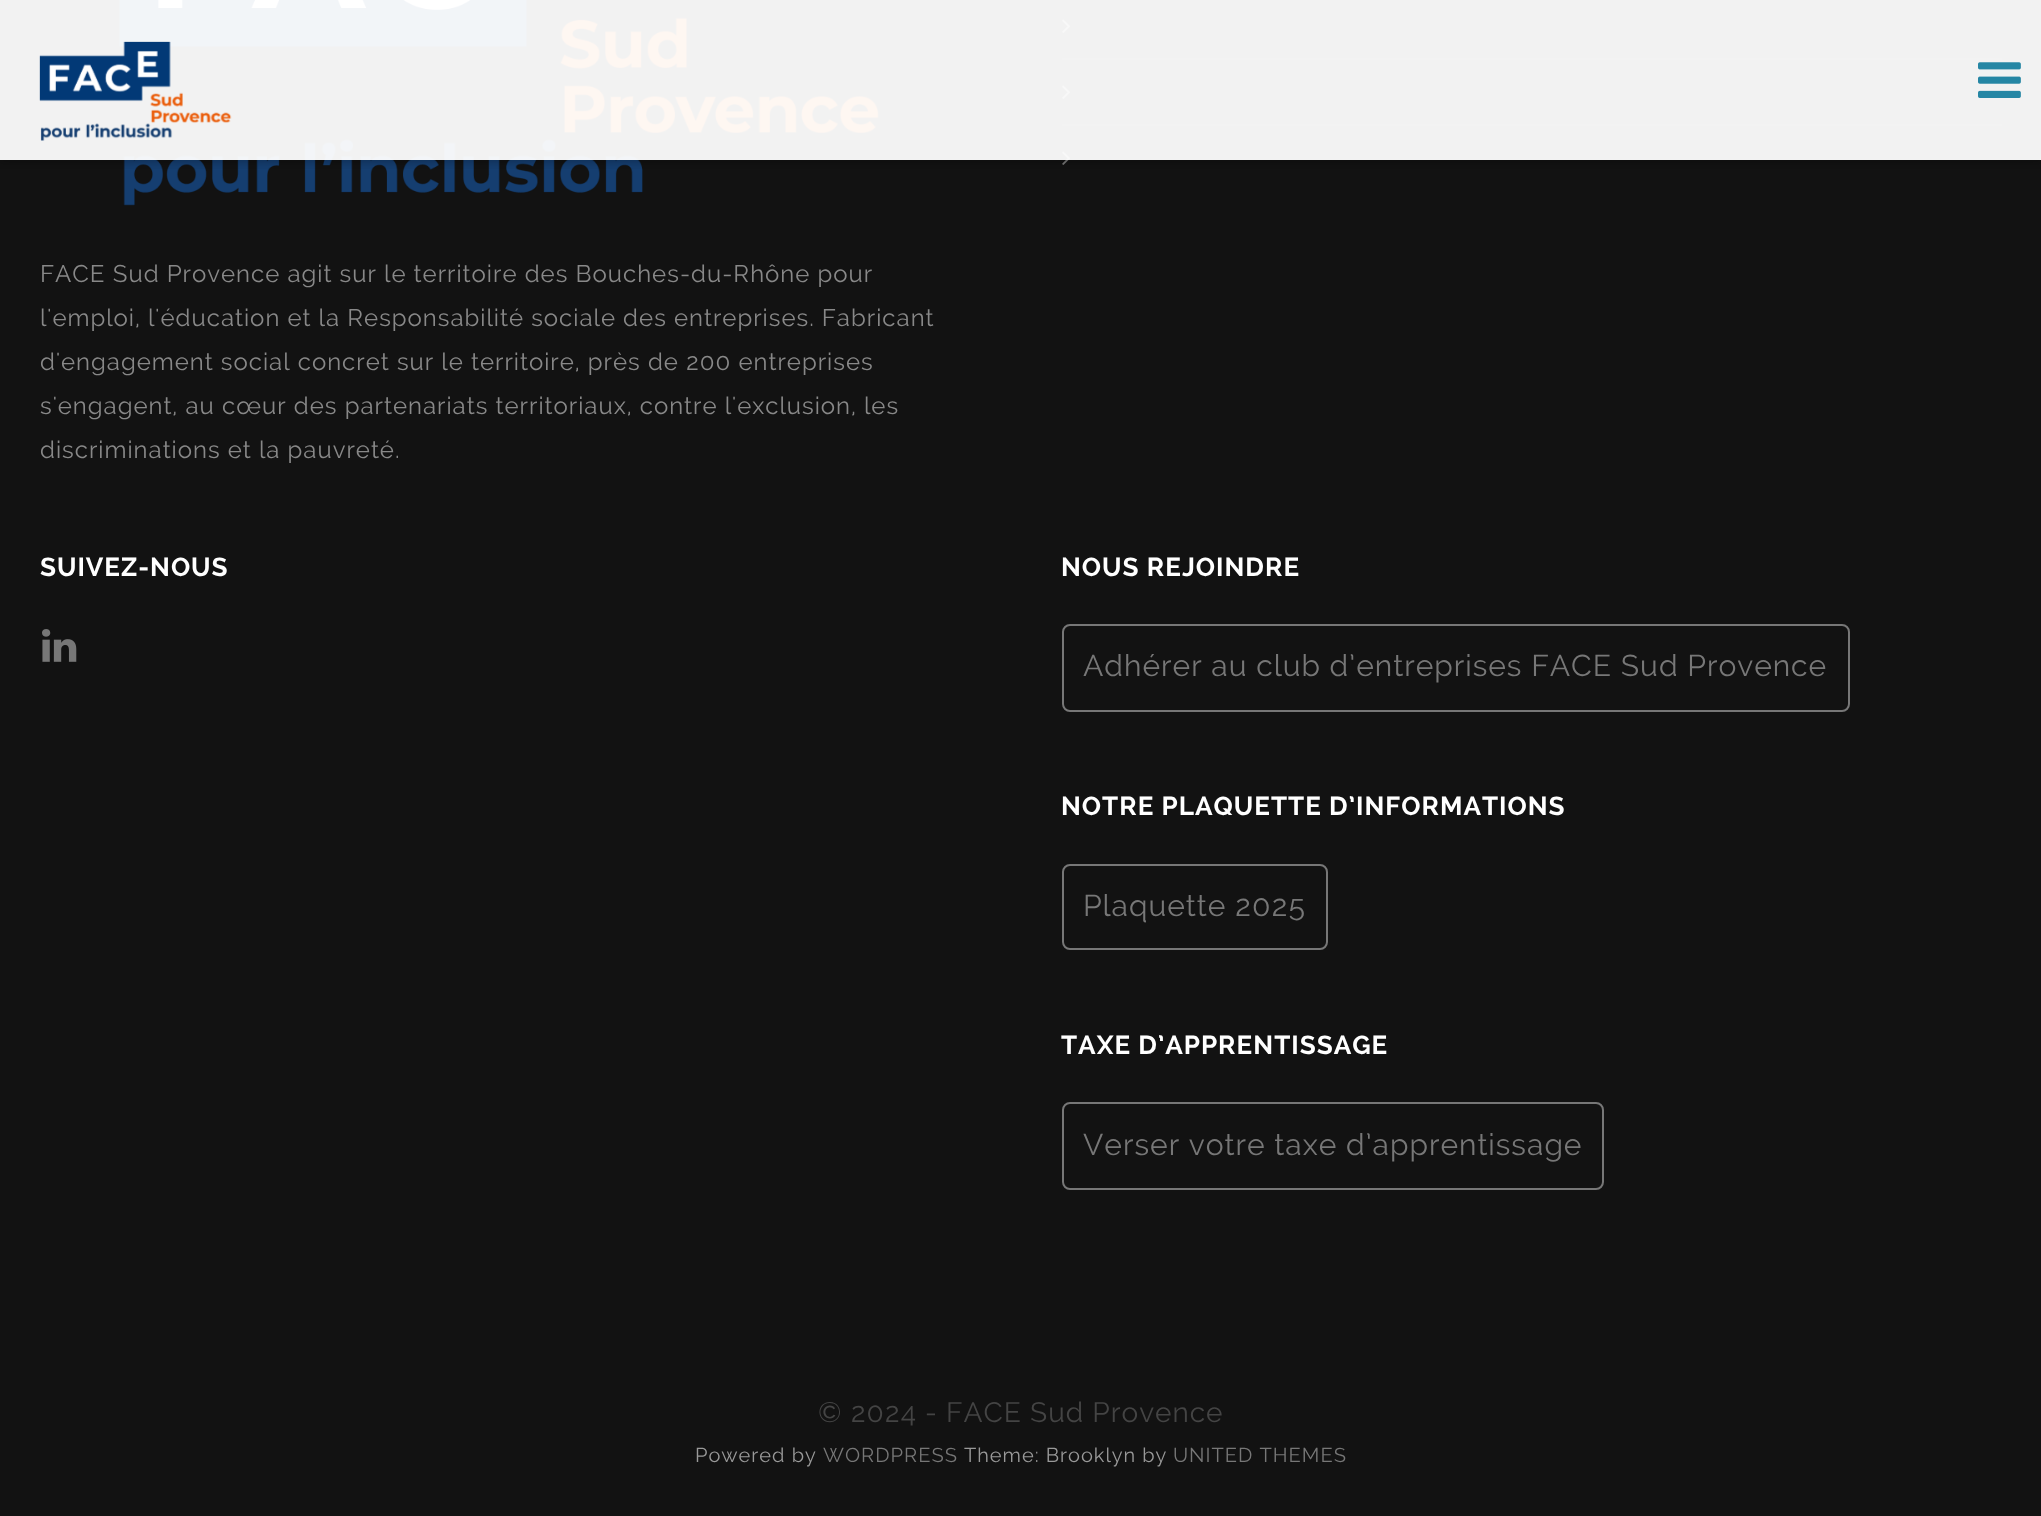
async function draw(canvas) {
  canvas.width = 2041
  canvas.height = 1516
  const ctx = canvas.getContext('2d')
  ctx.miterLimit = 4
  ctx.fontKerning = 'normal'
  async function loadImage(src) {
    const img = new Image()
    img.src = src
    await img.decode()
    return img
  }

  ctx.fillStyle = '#121212'
  ctx.fillRect(0, 0, 2041, 1516)
  ctx.fillStyle = '#222'
  ctx.fillRect(1062, 58, 940, 2)
  ctx.drawImage(await loadImage('image2.png'), 1062, 19, 8, 14)
  ctx.fillRect(1062, 124, 940, 2)
  ctx.drawImage(await loadImage('image2.png'), 1062, 85, 8, 14)
  ctx.drawImage(await loadImage('image2.png'), 1062, 151, 8, 14)
  ctx.drawImage(await loadImage('image3.png'), 119, 0, 760, 206)
  ctx.save()
  ctx.beginPath()
  ctx.rect(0, 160, 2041, 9)
  ctx.clip()
  ctx.fillStyle = '#00000040'
  ctx.filter = 'blur(5px)'
  ctx.beginPath()
  ctx.rect(0, 2, 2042, 160)
  ctx.fill()
  ctx.filter = 'none'
  ctx.restore()
  ctx.fillStyle = '#fffffff2'
  ctx.fillRect(0, 0, 2041, 160)
  ctx.drawImage(await loadImage('image0.png'), 39, 41, 193, 100)
  ctx.drawImage(await loadImage('image1.png'), 1978, 62, 43, 36)
  ctx.letterSpacing = '1px'
  ctx.font = '24px Raleway'
  ctx.fillStyle = '#888'
  ctx.fillText('FACE Sud Provence agit sur le territoire des Bouches-du-Rhône pour', 40, 282)
  ctx.fillText('l\'emploi, l\'éducation et la Responsabilité sociale des entreprises. Fabricant', 40, 326)
  ctx.fillText('d\'engagement social concret sur le territoire, près de 200 entreprises', 40, 370)
  ctx.fillText('s\'engagent, au cœur des partenariats territoriaux, contre l\'exclusion, les', 40, 414)
  ctx.fillText('discriminations et la pauvreté.', 40, 458)
  ctx.font = 'bold 26px Raleway'
  ctx.fillStyle = '#fff'
  ctx.fillText('SUIVEZ-NOUS', 40, 576)
  ctx.drawImage(await loadImage('image4.png'), 42, 629, 35, 33)
  ctx.fillText('NOUS REJOINDRE', 1061, 576)
  ctx.beginPath()
  ctx.roundRect(1063, 625, 786, 86, 7)
  ctx.strokeStyle = '#777'
  ctx.lineWidth = 2
  ctx.stroke()
  ctx.font = '30px Raleway'
  ctx.fillStyle = '#777'
  ctx.fillText('Adhérer au club d’entreprises FACE Sud Provence', 1083, 676)
  ctx.font = 'bold 26px Raleway'
  ctx.fillStyle = '#fff'
  ctx.fillText('NOTRE PLAQUETTE D’INFORMATIONS', 1061, 815)
  ctx.beginPath()
  ctx.roundRect(1063, 865, 264, 84, 7)
  ctx.stroke()
  ctx.font = '30px Raleway'
  ctx.fillStyle = '#777'
  ctx.fillText('Plaquette 2025', 1083, 916)
  ctx.font = 'bold 26px Raleway'
  ctx.fillStyle = '#fff'
  ctx.fillText('TAXE D’APPRENTISSAGE', 1061, 1054)
  ctx.beginPath()
  ctx.roundRect(1063, 1103, 540, 86, 7)
  ctx.stroke()
  ctx.font = '30px Raleway'
  ctx.fillStyle = '#777'
  ctx.fillText('Verser votre taxe d’apprentissage', 1083, 1155)
  ctx.font = '28px Raleway'
  ctx.fillStyle = '#444'
  ctx.fillText('© 2024 - FACE Sud Provence', 818, 1422)
  ctx.font = '20px Raleway'
  ctx.fillStyle = '#999'
  ctx.fillText('Powered by', 695, 1462)
  ctx.fillStyle = '#777'
  ctx.fillText('WORDPRESS', 823, 1462)
  ctx.fillStyle = '#999'
  ctx.fillText('Theme: Brooklyn by', 964, 1462)
  ctx.fillStyle = '#777'
  ctx.fillText('UNITED THEMES', 1173, 1462)
}

draw(document.querySelector('canvas'))
